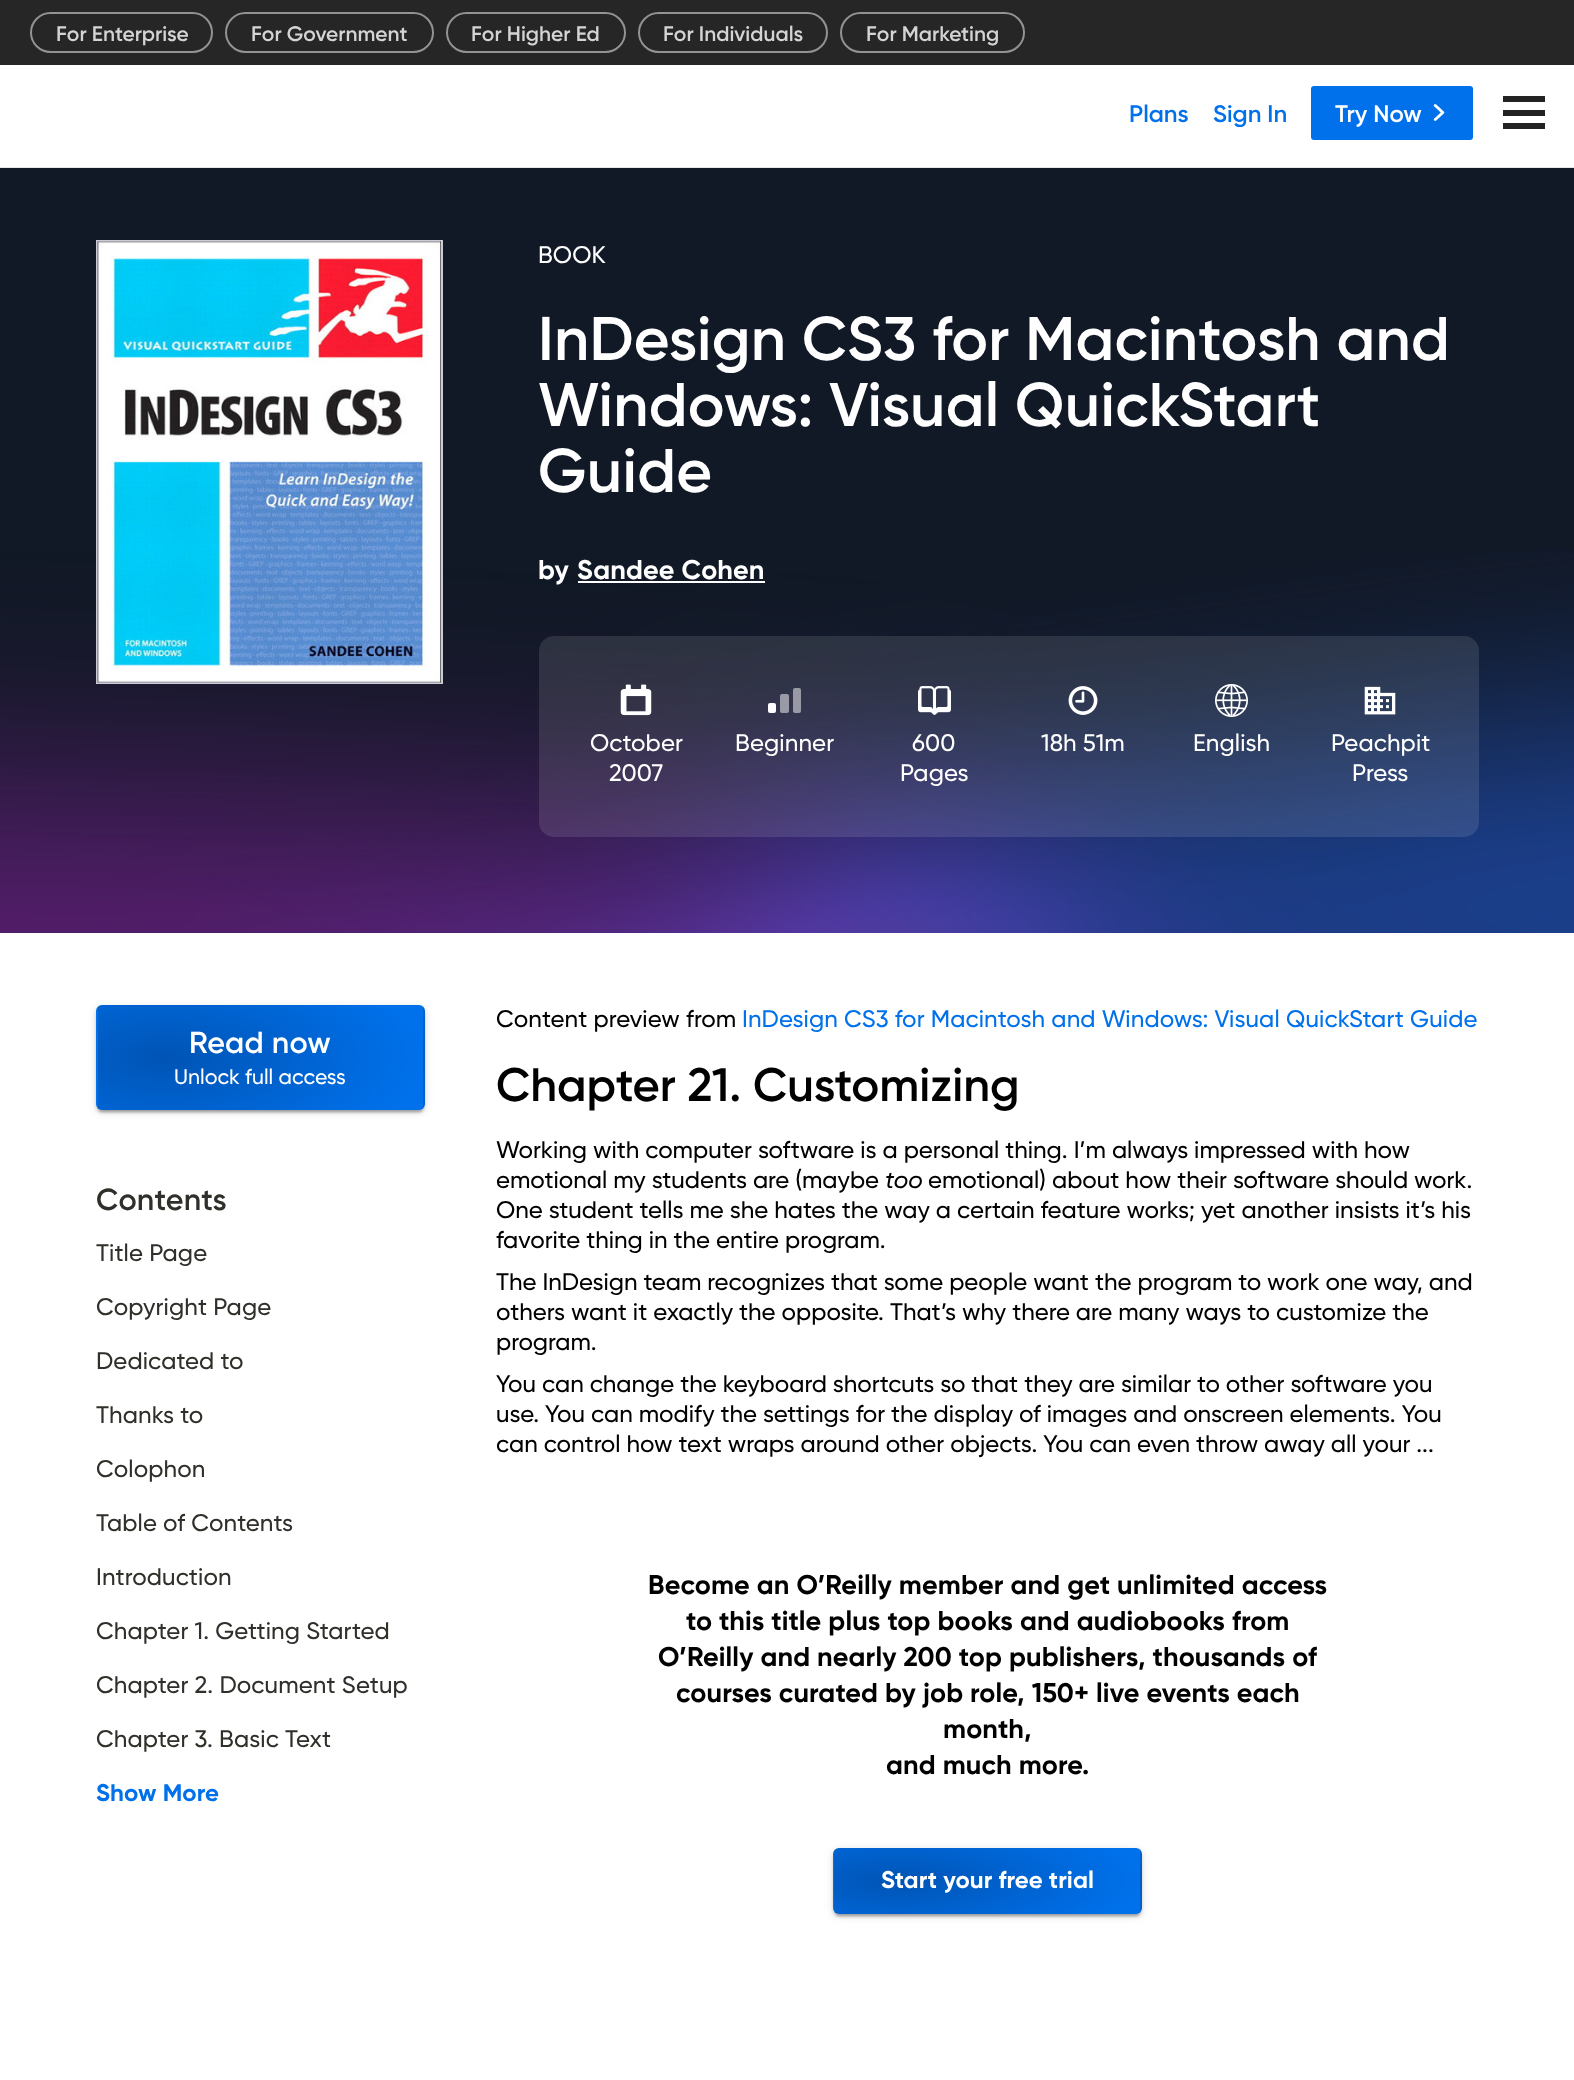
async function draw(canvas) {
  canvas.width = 1574
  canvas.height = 2080
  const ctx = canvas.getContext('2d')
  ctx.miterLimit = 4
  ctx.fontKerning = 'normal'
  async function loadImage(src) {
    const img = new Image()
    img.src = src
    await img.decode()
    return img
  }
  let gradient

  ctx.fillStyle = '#fff'
  ctx.fillRect(0, 0, 1574, 2080)
  ctx.fillStyle = '#e6e6e6'
  ctx.fillRect(0, 167, 1574, 1)
  ctx.fillStyle = '#262626'
  ctx.fillRect(0, 0, 1574, 65)
  ctx.beginPath()
  ctx.roundRect(31, 13, 181, 39, 19.5)
  ctx.strokeStyle = '#939393'
  ctx.lineWidth = 2
  ctx.stroke()
  ctx.font = '600 21px Gilroy'
  ctx.fillStyle = '#d4d4d4'
  ctx.fillText('For Enterprise', 56, 41)
  ctx.beginPath()
  ctx.roundRect(226, 13, 207, 39, 19.5)
  ctx.stroke()
  ctx.fillText('For Government', 251, 41)
  ctx.beginPath()
  ctx.roundRect(447, 13, 178, 39, 19.5)
  ctx.stroke()
  ctx.fillText('For Higher Ed', 471, 41)
  ctx.beginPath()
  ctx.roundRect(639, 13, 188, 39, 19.5)
  ctx.stroke()
  ctx.fillText('For Individuals', 663, 41)
  ctx.beginPath()
  ctx.roundRect(841, 13, 183, 39, 19.5)
  ctx.stroke()
  ctx.fillText('For Marketing', 866, 41)
  ctx.font = '600 24px Gilroy'
  ctx.fillStyle = '#0071eb'
  ctx.fillText('Plans', 1129, 122)
  ctx.fillText('Sign In', 1213, 122)
  ctx.beginPath()
  ctx.roundRect(1311, 86, 162, 54, 3)
  ctx.fill()
  ctx.fillStyle = '#fff'
  ctx.fillText('Try Now', 1335, 122)
  ctx.drawImage(await loadImage('image0.png'), 1433, 104, 12, 17)
  ctx.fillStyle = '#222'
  ctx.fillRect(1503, 110, 42, 6)
  ctx.fillRect(1503, 96, 42, 6)
  ctx.fillRect(1503, 123, 42, 6)
  ctx.fillStyle = '#121926'
  ctx.fillRect(0, 169, 1574, 764)
  ctx.fillStyle = '#101722'
  ctx.fillRect(0, 168, 1574, 1)
  ctx.drawImage(await loadImage('image1.png'), 0, 550, 1574, 383)
  ctx.fillStyle = '#cacbd6'
  ctx.fillRect(96, 240, 347, 444)
  ctx.drawImage(await loadImage('image2.png'), 97, 241, 344, 442)
  ctx.letterSpacing = '0.12px'
  ctx.font = '500 24px Gilroy'
  ctx.fillStyle = '#fff'
  ctx.fillText('BOOK', 538, 263)
  ctx.letterSpacing = '0.3px'
  ctx.font = '600 61.6px Gilroy'
  ctx.fillText('InDesign CS3 for Macintosh and', 538, 360)
  ctx.fillText('Windows: Visual QuickStart', 538, 426)
  ctx.fillText('Guide', 538, 492)
  ctx.letterSpacing = '0.15px'
  ctx.font = 'bold 27px Gilroy'
  ctx.fillText('by', 538, 579)
  ctx.fillText('Sandee Cohen', 577, 579)
  ctx.fillRect(578, 581, 187, 2)
  ctx.fillStyle = '#ffffff1c'
  ctx.beginPath()
  ctx.roundRect(539, 636, 940, 201, 15)
  ctx.fill()
  ctx.drawImage(await loadImage('image3.png'), 620, 684, 32, 32)
  ctx.letterSpacing = '0.12px'
  ctx.font = '500 24px Gilroy'
  ctx.fillStyle = '#fff'
  ctx.fillText('October', 590, 751)
  ctx.fillText('2007', 609, 781)
  ctx.beginPath()
  ctx.roundRect(768, 703, 8, 10, 2)
  ctx.fill()
  ctx.fillStyle = '#ffffff80'
  ctx.beginPath()
  ctx.roundRect(780, 694, 9, 19, 2)
  ctx.fill()
  ctx.beginPath()
  ctx.roundRect(793, 688, 8, 25, 2)
  ctx.fill()
  ctx.fillStyle = '#fff'
  ctx.fillText('Beginner', 735, 751)
  ctx.drawImage(await loadImage('image4.png'), 918, 686, 33, 29)
  ctx.fillText('600', 912, 751)
  ctx.fillText('Pages', 900, 781)
  ctx.drawImage(await loadImage('image5.png'), 1068, 686, 30, 29)
  ctx.fillText('18h 51m', 1041, 751)
  ctx.drawImage(await loadImage('image6.png'), 1215, 684, 33, 33)
  ctx.fillText('English', 1193, 751)
  ctx.drawImage(await loadImage('image7.png'), 1364, 686, 32, 29)
  ctx.fillText('Peachpit', 1331, 751)
  ctx.fillText('Press', 1352, 781)
  ctx.fillStyle = '#0000001f'
  ctx.filter = 'blur(4px)'
  ctx.beginPath()
  ctx.roundRect(96, 1007, 329, 105, 6)
  ctx.fill()
  ctx.filter = 'none'
  ctx.fillStyle = '#00000024'
  ctx.filter = 'blur(1.5px)'
  ctx.beginPath()
  ctx.roundRect(96, 1008, 329, 105, 6)
  ctx.fill()
  ctx.filter = 'none'
  ctx.fillStyle = '#00000033'
  ctx.filter = 'blur(1px)'
  ctx.beginPath()
  ctx.roundRect(99, 1013, 323, 99, 3)
  ctx.fill()
  ctx.filter = 'none'
  ctx.save()
  ctx.beginPath()
  ctx.roundRect(96, 1005, 329, 105, 6)
  ctx.clip()
  gradient = ctx.createRadialGradient(-161, 2305.12, 0, -161, 2305.12, 258)
  gradient.addColorStop(0, '#0054b5')
  gradient.addColorStop(1, '#0071eb')
  ctx.fillStyle = gradient
  ctx.beginPath()
  ctx.rect(96, 1006, 2, 1)
  ctx.save()
  ctx.clip()
  ctx.scale(1, 107 / 258)
  ctx.fillRect(0, 0, 1574, 5016)
  ctx.restore()
  gradient = ctx.createRadialGradient(165, 2305.12, 0, 165, 2305.12, 258)
  gradient.addColorStop(0, '#0054b5')
  gradient.addColorStop(1, '#0071eb')
  ctx.fillStyle = gradient
  ctx.beginPath()
  ctx.rect(98, 1005, 325, 2)
  ctx.save()
  ctx.clip()
  ctx.scale(1, 107 / 258)
  ctx.fillRect(0, 0, 1574, 5016)
  ctx.restore()
  gradient = ctx.createRadialGradient(490, 2305.12, 0, 490, 2305.12, 258)
  gradient.addColorStop(0, '#0054b5')
  gradient.addColorStop(1, '#0071eb')
  ctx.fillStyle = gradient
  ctx.beginPath()
  ctx.rect(423, 1006, 2, 1)
  ctx.save()
  ctx.clip()
  ctx.scale(1, 107 / 258)
  ctx.fillRect(0, 0, 1574, 5016)
  ctx.restore()
  gradient = ctx.createRadialGradient(-161, 2551.07, 0, -161, 2551.07, 258)
  gradient.addColorStop(0, '#0054b5')
  gradient.addColorStop(1, '#0071eb')
  ctx.fillStyle = gradient
  ctx.beginPath()
  ctx.rect(96, 1007, 2, 102)
  ctx.save()
  ctx.clip()
  ctx.scale(1, 107 / 258)
  ctx.fillRect(0, 0, 1574, 5016)
  ctx.restore()
  ctx.restore()
  gradient = ctx.createRadialGradient(165, 2551.07, 0, 165, 2551.07, 258)
  gradient.addColorStop(0, '#0054b5')
  gradient.addColorStop(1, '#0071eb')
  ctx.fillStyle = gradient
  ctx.beginPath()
  ctx.rect(98, 1007, 325, 102)
  ctx.save()
  ctx.clip()
  ctx.scale(1, 107 / 258)
  ctx.fillRect(0, 0, 1574, 5016)
  ctx.restore()
  ctx.save()
  ctx.beginPath()
  ctx.roundRect(96, 1005, 329, 105, 6)
  ctx.clip()
  gradient = ctx.createRadialGradient(490, 2551.07, 0, 490, 2551.07, 258)
  gradient.addColorStop(0, '#0054b5')
  gradient.addColorStop(1, '#0071eb')
  ctx.fillStyle = gradient
  ctx.beginPath()
  ctx.rect(423, 1007, 2, 102)
  ctx.save()
  ctx.clip()
  ctx.scale(1, 107 / 258)
  ctx.fillRect(0, 0, 1574, 5016)
  ctx.restore()
  gradient = ctx.createRadialGradient(165, 2797.01, 0, 165, 2797.01, 258)
  gradient.addColorStop(0, '#0054b5')
  gradient.addColorStop(1, '#0071eb')
  ctx.fillStyle = gradient
  ctx.beginPath()
  ctx.rect(98, 1109, 325, 1)
  ctx.save()
  ctx.clip()
  ctx.scale(1, 107 / 258)
  ctx.fillRect(0, 0, 1574, 5016)
  ctx.restore()
  ctx.restore()
  ctx.letterSpacing = '0.25px'
  ctx.font = '600 30.5px Gilroy'
  ctx.fillStyle = '#fff'
  ctx.fillText('Read now', 189, 1053)
  ctx.letterSpacing = '0px'
  ctx.font = '500 21.25px Gilroy'
  ctx.fillText('Unlock full access', 174, 1084)
  ctx.letterSpacing = '0.25px'
  ctx.font = '600 30.5px Gilroy'
  ctx.fillStyle = '#302f2a'
  ctx.fillText('Contents', 96, 1210)
  ctx.letterSpacing = '0.12px'
  ctx.font = '500 24px Gilroy'
  ctx.fillText('Title Page', 96, 1261)
  ctx.fillText('Copyright Page', 96, 1315)
  ctx.fillText('Dedicated to', 96, 1369)
  ctx.fillText('Thanks to', 96, 1423)
  ctx.fillText('Colophon', 96, 1477)
  ctx.fillText('Table of Contents', 96, 1531)
  ctx.fillText('Introduction', 96, 1585)
  ctx.fillText('Chapter 1. Getting Started', 96, 1639)
  ctx.fillText('Chapter 2. Document Setup', 96, 1693)
  ctx.fillText('Chapter 3. Basic Text', 96, 1747)
  ctx.font = 'bold 24px Gilroy'
  ctx.fillStyle = '#0071eb'
  ctx.fillText('Show More', 96, 1801)
  ctx.font = '500 24px Gilroy'
  ctx.fillStyle = '#000'
  ctx.fillText('Content preview from', 496, 1027)
  ctx.fillStyle = '#0071eb'
  ctx.fillText('InDesign CS3 for Macintosh and Windows: Visual QuickStart Guide', 742, 1027)
  ctx.letterSpacing = '0px'
  ctx.font = '600 46.9px Gilroy'
  ctx.fillStyle = '#000'
  ctx.fillText('Chapter 21. Customizing', 496, 1101)
  ctx.font = '500 24px Gilroy'
  ctx.fillText('Working with computer software is a personal thing. I’m always impressed with how', 496, 1158)
  ctx.fillText('emotional my students are (maybe', 496, 1188)
  ctx.font = 'italic 500 24px Gilroy'
  ctx.fillText('too', 885, 1188)
  ctx.font = '500 24px Gilroy'
  ctx.fillText('emotional) about how their software should work.', 928, 1188)
  ctx.fillText('One student tells me she hates the way a certain feature works; yet another insists it’s his', 496, 1218)
  ctx.fillText('favorite thing in the entire program.', 496, 1248)
  ctx.fillText('The InDesign team recognizes that some people want the program to work one way, and', 496, 1290)
  ctx.fillText('others want it exactly the opposite. That’s why there are many ways to customize the', 496, 1320)
  ctx.fillText('program.', 496, 1350)
  ctx.fillText('You can change the keyboard shortcuts so that they are similar to other software you', 496, 1392)
  ctx.fillText('use. You can modify the settings for the display of images and onscreen elements. You', 496, 1422)
  ctx.fillText('can control how text wraps around other objects. You can even throw away all your ...', 496, 1452)
  ctx.letterSpacing = '0.15px'
  ctx.font = 'bold 27px Gilroy'
  ctx.fillText('Become an O’Reilly member and get unlimited access', 648, 1594)
  ctx.fillText('to this title plus top books and audiobooks from', 686, 1630)
  ctx.fillText('O’Reilly and nearly 200 top publishers, thousands of', 658, 1666)
  ctx.fillText('courses curated by job role, 150+ live events each', 676, 1702)
  ctx.fillText('month,', 943, 1738)
  ctx.fillText('and much more.', 886, 1774)
  ctx.fillStyle = '#0000001f'
  ctx.filter = 'blur(4px)'
  ctx.beginPath()
  ctx.roundRect(833, 1850, 309, 66, 6)
  ctx.fill()
  ctx.filter = 'none'
  ctx.fillStyle = '#00000024'
  ctx.filter = 'blur(1.5px)'
  ctx.beginPath()
  ctx.roundRect(833, 1851, 309, 66, 6)
  ctx.fill()
  ctx.filter = 'none'
  ctx.fillStyle = '#00000033'
  ctx.filter = 'blur(1px)'
  ctx.beginPath()
  ctx.roundRect(836, 1856, 303, 60, 3)
  ctx.fill()
  ctx.filter = 'none'
  ctx.save()
  ctx.beginPath()
  ctx.roundRect(833, 1848, 309, 66, 6)
  ctx.clip()
  gradient = ctx.createRadialGradient(897, 6693.55, 0, 897, 6693.55, 243)
  gradient.addColorStop(0, '#0054b5')
  gradient.addColorStop(1, '#0071eb')
  ctx.fillStyle = gradient
  ctx.beginPath()
  ctx.rect(834, 1848, 306, 2)
  ctx.save()
  ctx.clip()
  ctx.scale(1, 66 / 243)
  ctx.fillRect(0, 0, 1574, 7659)
  ctx.restore()
  gradient = ctx.createRadialGradient(1203, 6693.55, 0, 1203, 6693.55, 243)
  gradient.addColorStop(0, '#0054b5')
  gradient.addColorStop(1, '#0071eb')
  ctx.fillStyle = gradient
  ctx.beginPath()
  ctx.rect(1140, 1849, 2, 1)
  ctx.save()
  ctx.clip()
  ctx.scale(1, 66 / 243)
  ctx.fillRect(0, 0, 1574, 7659)
  ctx.restore()
  gradient = ctx.createRadialGradient(591, 6925.5, 0, 591, 6925.5, 243)
  gradient.addColorStop(0, '#0054b5')
  gradient.addColorStop(1, '#0071eb')
  ctx.fillStyle = gradient
  ctx.beginPath()
  ctx.rect(833, 1850, 1, 63)
  ctx.save()
  ctx.clip()
  ctx.scale(1, 66 / 243)
  ctx.fillRect(0, 0, 1574, 7659)
  ctx.restore()
  gradient = ctx.createRadialGradient(897, 6925.5, 0, 897, 6925.5, 243)
  gradient.addColorStop(0, '#0054b5')
  gradient.addColorStop(1, '#0071eb')
  ctx.fillStyle = gradient
  ctx.beginPath()
  ctx.rect(834, 1850, 306, 63)
  ctx.save()
  ctx.clip()
  ctx.scale(1, 66 / 243)
  ctx.fillRect(0, 0, 1574, 7659)
  ctx.restore()
  gradient = ctx.createRadialGradient(1203, 6925.5, 0, 1203, 6925.5, 243)
  gradient.addColorStop(0, '#0054b5')
  gradient.addColorStop(1, '#0071eb')
  ctx.fillStyle = gradient
  ctx.beginPath()
  ctx.rect(1140, 1850, 2, 63)
  ctx.save()
  ctx.clip()
  ctx.scale(1, 66 / 243)
  ctx.fillRect(0, 0, 1574, 7659)
  ctx.restore()
  gradient = ctx.createRadialGradient(897, 7157.45, 0, 897, 7157.45, 243)
  gradient.addColorStop(0, '#0054b5')
  gradient.addColorStop(1, '#0071eb')
  ctx.fillStyle = gradient
  ctx.beginPath()
  ctx.rect(834, 1913, 306, 1)
  ctx.save()
  ctx.clip()
  ctx.scale(1, 66 / 243)
  ctx.fillRect(0, 0, 1574, 7659)
  ctx.restore()
  ctx.restore()
  ctx.letterSpacing = '0.12px'
  ctx.font = 'bold 24px Gilroy'
  ctx.fillStyle = '#fff'
  ctx.fillText('Start your free trial', 881, 1888)
}

draw(document.querySelector('canvas'))
